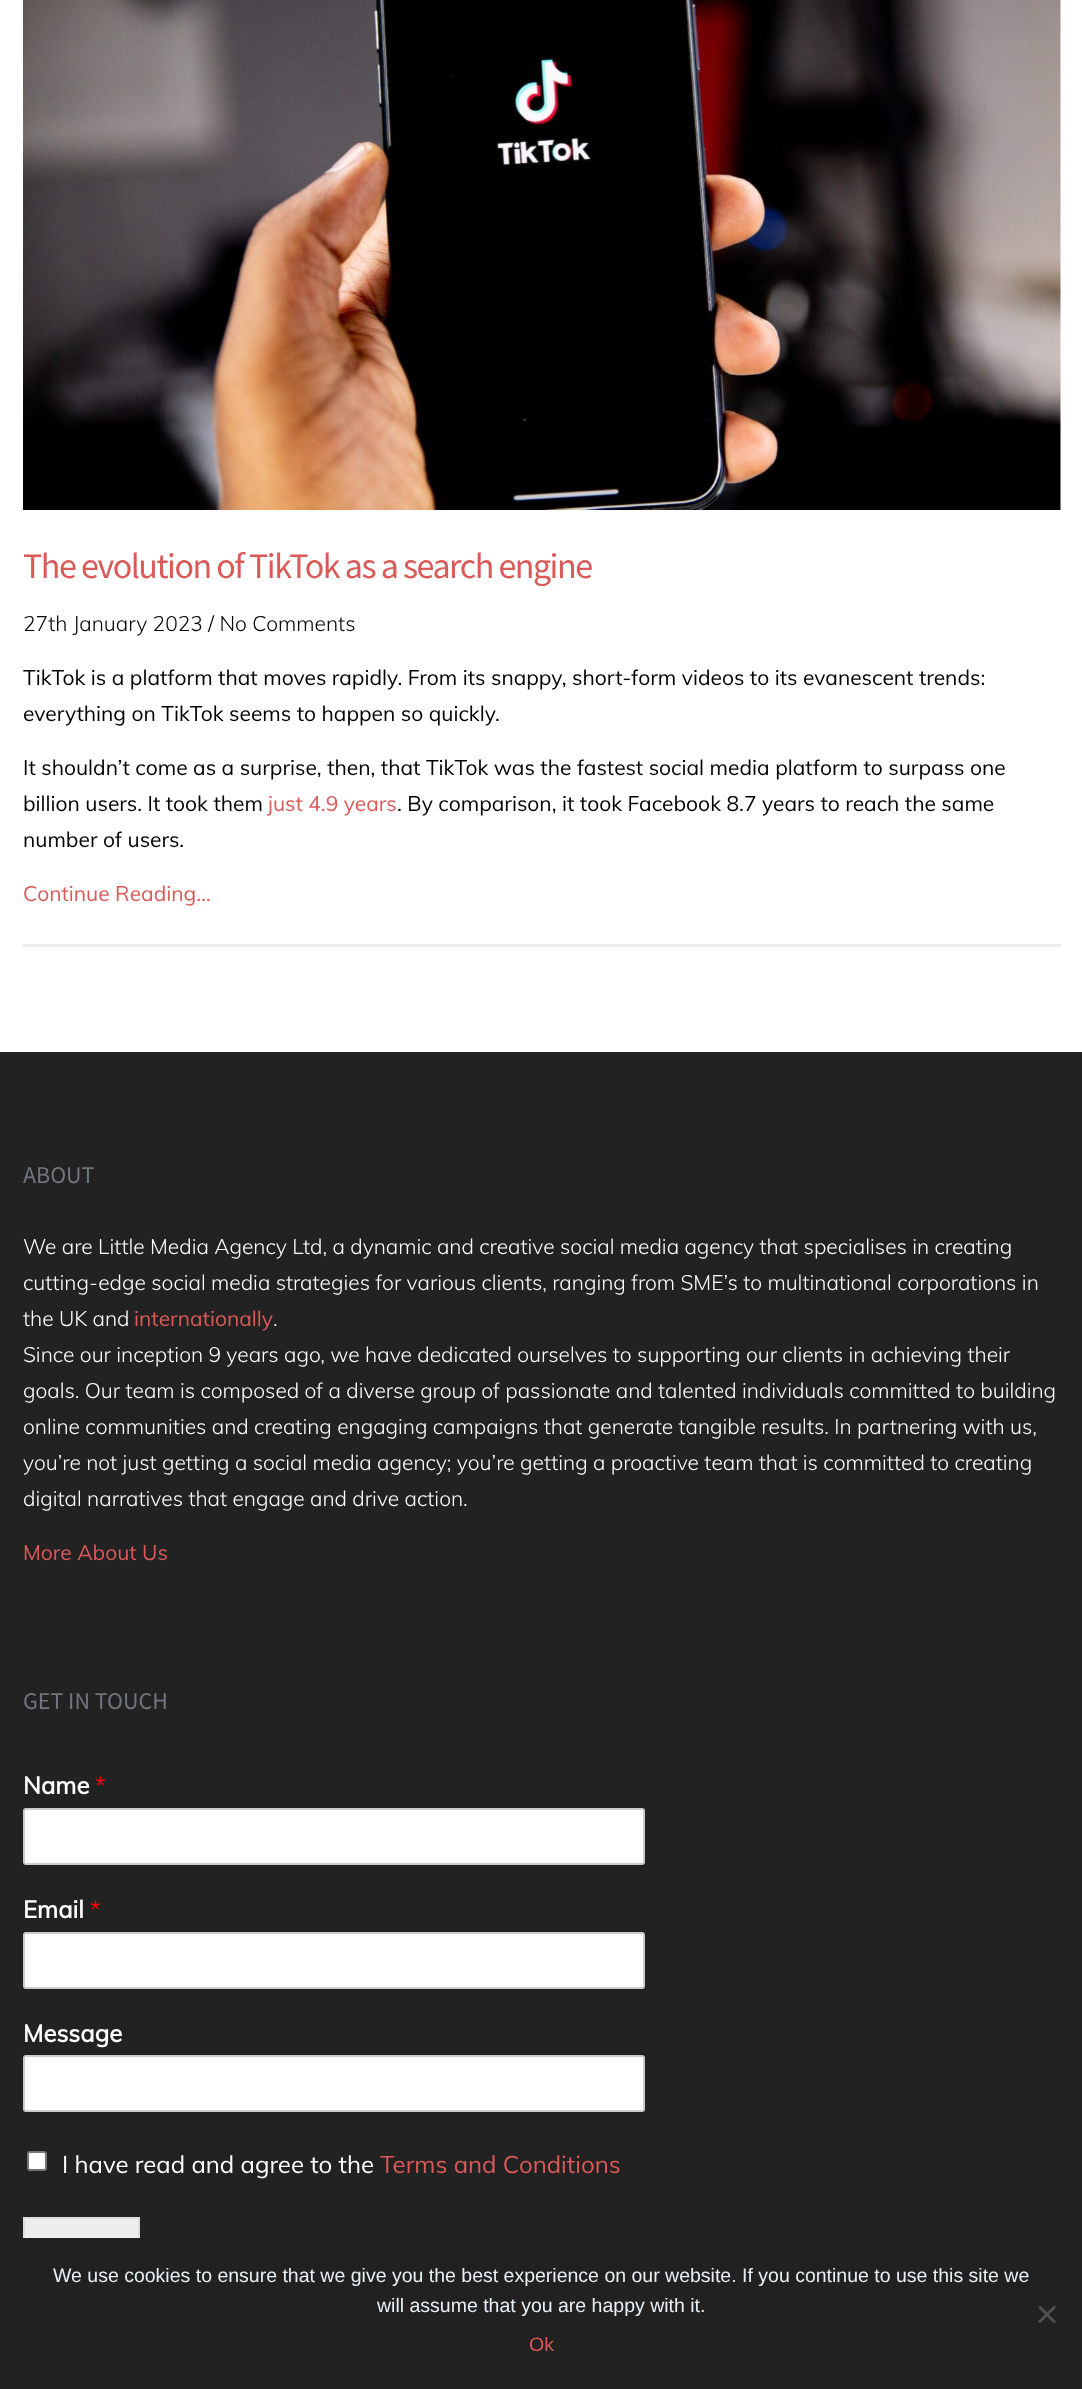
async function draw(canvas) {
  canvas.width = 1082
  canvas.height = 2389
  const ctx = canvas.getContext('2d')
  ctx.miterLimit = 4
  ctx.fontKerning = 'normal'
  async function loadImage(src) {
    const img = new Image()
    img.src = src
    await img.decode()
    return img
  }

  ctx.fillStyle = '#fff'
  ctx.fillRect(0, 0, 1082, 2389)
  ctx.fillStyle = '#ebedef'
  ctx.fillRect(23, 944, 1038, 3)
  ctx.drawImage(await loadImage('image0.png'), 23, 0, 1038, 510)
  ctx.letterSpacing = '-1.5px'
  ctx.font = '36px Source Sans Pro'
  ctx.fillStyle = '#da5a58'
  ctx.fillText('The evolution of TikTok as a search engine', 23, 578)
  ctx.letterSpacing = '0px'
  ctx.font = '300 21px Muli'
  ctx.fillStyle = '#000'
  ctx.fillText('27th January 2023 / No Comments', 23, 631)
  ctx.font = '21px Muli'
  ctx.fillText('TikTok is a platform that moves rapidly. From its snappy, short-form videos to its evanescent trends:', 23, 685)
  ctx.fillText('everything on TikTok seems to happen so quickly.', 23, 721)
  ctx.fillText('It shouldn’t come as a surprise, then, that TikTok was the fastest social media platform to surpass one', 23, 775)
  ctx.fillText('billion users. It took them', 23, 811)
  ctx.fillStyle = '#da5a58'
  ctx.fillText('just 4.9 years', 268, 811)
  ctx.fillStyle = '#000'
  ctx.fillText('. By comparison, it took Facebook 8.7 years to reach the same', 397, 811)
  ctx.fillText('number of users.', 23, 847)
  ctx.fillStyle = '#da5a58'
  ctx.fillText('Continue Reading…', 23, 901)
  ctx.fillStyle = '#222'
  ctx.fillRect(0, 1052, 1082, 1186)
  ctx.font = '24px Source Sans Pro'
  ctx.fillStyle = '#717580'
  ctx.fillText('ABOUT', 23, 1183)
  ctx.font = '300 21px Muli'
  ctx.fillStyle = '#fff'
  ctx.fillText('We are Little Media Agency Ltd, a dynamic and creative social media agency that specialises in creating', 23, 1254)
  ctx.fillText('cutting-edge social media strategies for various clients, ranging from SME’s to multinational corporations in', 23, 1290)
  ctx.fillText('the UK and', 23, 1326)
  ctx.font = '21px Muli'
  ctx.fillStyle = '#da5a58'
  ctx.fillText('internationally', 134, 1326)
  ctx.font = '300 21px Muli'
  ctx.fillStyle = '#fff'
  ctx.fillText('.', 273, 1326)
  ctx.fillText('Since our inception 9 years ago, we have dedicated ourselves to supporting our clients in achieving their', 23, 1362)
  ctx.fillText('goals. Our team is composed of a diverse group of passionate and talented individuals committed to building', 23, 1398)
  ctx.fillText('online communities and creating engaging campaigns that generate tangible results. In partnering with us,', 23, 1434)
  ctx.fillText('you’re not just getting a social media agency; you’re getting a proactive team that is committed to creating', 23, 1470)
  ctx.fillText('digital narratives that engage and drive action.', 23, 1506)
  ctx.font = '21px Muli'
  ctx.fillStyle = '#da5a58'
  ctx.fillText('More About Us', 23, 1560)
  ctx.font = '24px Source Sans Pro'
  ctx.fillStyle = '#717580'
  ctx.fillText('GET IN TOUCH', 23, 1709)
  ctx.font = 'bold 24px Muli'
  ctx.fillStyle = '#fff'
  ctx.fillText('Name', 23, 1794)
  ctx.font = '24px Muli'
  ctx.fillStyle = '#f00'
  ctx.fillText('*', 95, 1794)
  ctx.fillStyle = '#fff'
  ctx.beginPath()
  ctx.roundRect(24, 1809, 620, 55, 2)
  ctx.fill()
  ctx.strokeStyle = '#ccc'
  ctx.lineWidth = 2
  ctx.stroke()
  ctx.font = 'bold 24px Muli'
  ctx.fillText('Email', 23, 1918)
  ctx.font = '24px Muli'
  ctx.fillStyle = '#f00'
  ctx.fillText('*', 90, 1918)
  ctx.fillStyle = '#fff'
  ctx.beginPath()
  ctx.roundRect(24, 1933, 620, 55, 2)
  ctx.fill()
  ctx.stroke()
  ctx.font = 'bold 24px Muli'
  ctx.fillText('Message', 23, 2042)
  ctx.beginPath()
  ctx.roundRect(24, 2056, 620, 55, 2)
  ctx.fill()
  ctx.stroke()
  ctx.beginPath()
  ctx.roundRect(28, 2152, 18, 18, 2)
  ctx.fill()
  ctx.strokeStyle = '#767676'
  ctx.stroke()
  ctx.font = '24px Muli'
  ctx.fillText('I have read and agree to the', 62, 2173)
  ctx.fillStyle = '#da5a58'
  ctx.fillText('Terms and Conditions', 380, 2173)
  ctx.fillStyle = '#eee'
  ctx.fillRect(25, 2219, 113, 19)
  ctx.strokeStyle = '#ddd'
  ctx.strokeRect(24, 2218, 115, 67)
  ctx.fillStyle = '#212121'
  ctx.fillRect(0, 2238, 1082, 151)
  ctx.font = '19.5px Liberation Sans'
  ctx.fillStyle = '#e8f0f4'
  ctx.fillText('We use cookies to ensure that we give you the best experience on our website. If you continue to use this site we', 53, 2282)
  ctx.fillText('will assume that you are happy with it.', 377, 2312)
  ctx.fillStyle = '#515151'
  ctx.beginPath()
  ctx.moveTo(1054, 2305.5)
  ctx.lineTo(1056, 2307.5)
  ctx.lineTo(1040, 2323.5)
  ctx.lineTo(1038, 2321.5)
  ctx.closePath()
  ctx.fill()
  ctx.beginPath()
  ctx.moveTo(1038, 2307.5)
  ctx.lineTo(1040, 2305.5)
  ctx.lineTo(1056, 2321.5)
  ctx.lineTo(1054, 2323.5)
  ctx.closePath()
  ctx.fill()
  ctx.fillStyle = '#da5a58'
  ctx.fillText('Ok', 529, 2351)
}

draw(document.querySelector('canvas'))
